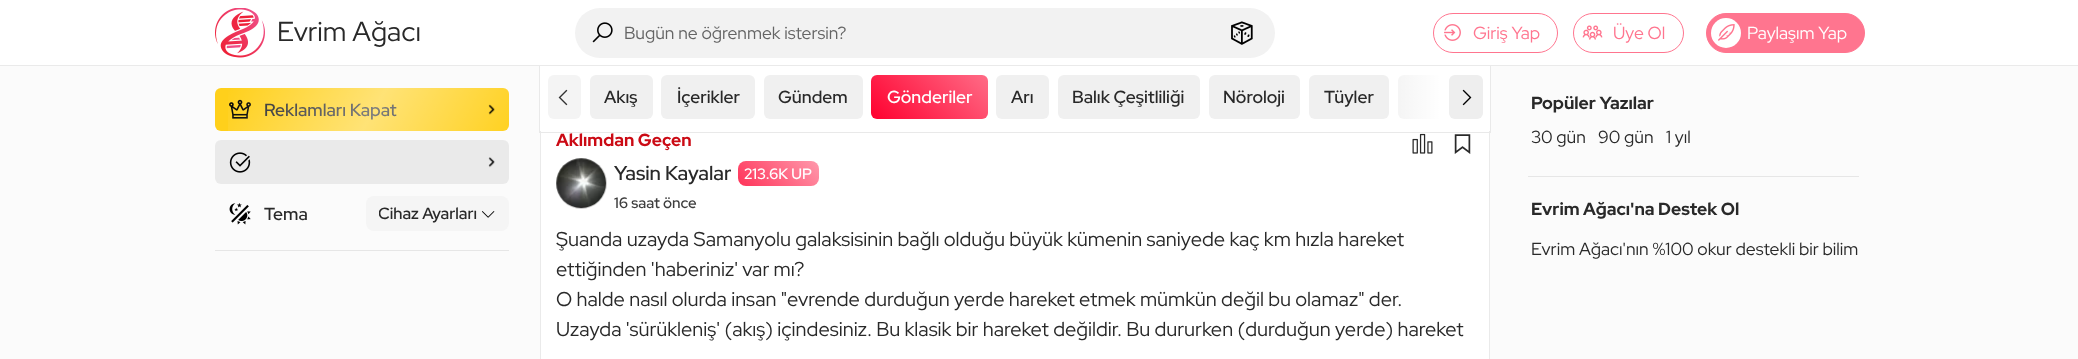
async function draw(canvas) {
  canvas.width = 2078
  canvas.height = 359
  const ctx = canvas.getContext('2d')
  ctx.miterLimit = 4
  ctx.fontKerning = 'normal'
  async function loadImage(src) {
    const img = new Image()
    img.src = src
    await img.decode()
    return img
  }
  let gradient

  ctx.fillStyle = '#fbfbfb'
  ctx.fillRect(0, 0, 2078, 359)
  ctx.fillStyle = '#fff'
  ctx.fillRect(541, 131, 948, 228)
  ctx.strokeStyle = '#eaeaea'
  ctx.strokeRect(540.5, 115.5, 949, 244)
  ctx.strokeStyle = '#e9e9e9'
  ctx.strokeRect(539.5, 61.5, 951, 71)
  ctx.fillRect(0, 0, 2078, 65)
  ctx.fillStyle = '#eaeaea'
  ctx.fillRect(0, 65, 2078, 1)
  ctx.drawImage(await loadImage('image0.png'), 215, 8, 50, 50)
  ctx.font = '27.5px Red Hat Display'
  ctx.fillStyle = '#292929'
  ctx.fillText('Evrim Ağacı', 277, 41)
  ctx.fillStyle = '#f2f2f2'
  ctx.beginPath()
  ctx.roundRect(575, 8, 700, 50, 25)
  ctx.fill()
  ctx.drawImage(await loadImage('image1.png'), 592, 22, 21, 21)
  ctx.font = '17.5px Red Hat Display'
  ctx.fillStyle = '#656565'
  ctx.fillText('Bugün ne öğrenmek istersin?', 624, 39)
  ctx.drawImage(await loadImage('image2.png'), 1231, 21, 22, 24)
  ctx.beginPath()
  ctx.roundRect(1433.5, 13.5, 124, 39, 19.5)
  ctx.strokeStyle = '#ff758f'
  ctx.stroke()
  ctx.drawImage(await loadImage('image3.png'), 1444, 24, 17, 17)
  ctx.fillStyle = '#ff758f'
  ctx.fillText('Giriş Yap', 1473, 39)
  ctx.beginPath()
  ctx.roundRect(1573.5, 13.5, 110, 39, 19.5)
  ctx.stroke()
  ctx.drawImage(await loadImage('image4.png'), 1582, 25, 21, 15)
  ctx.fillText('Üye Ol', 1613, 39)
  ctx.beginPath()
  ctx.roundRect(1706.5, 13.5, 158, 39, 19.5)
  ctx.fill()
  ctx.stroke()
  ctx.fillStyle = '#fff'
  ctx.beginPath()
  ctx.arc(1726, 33, 15, 0, 2 * Math.PI)
  ctx.fill()
  ctx.drawImage(await loadImage('image5.png'), 1718, 24, 17, 17)
  ctx.fillText('Paylaşım Yap', 1747, 39)
  ctx.fillStyle = '#ffd01b'
  ctx.beginPath()
  ctx.roundRect(215, 88, 294, 43, 6)
  ctx.fill()
  ctx.drawImage(await loadImage('image6.png'), 229, 99, 22, 20)
  ctx.font = '600 17.5px Red Hat Display'
  ctx.fillStyle = '#292929'
  ctx.fillText('Reklamları Kapat', 264, 116)
  gradient = ctx.createLinearGradient(255, 40, 494, 178)
  gradient.addColorStop(0, '#ffffff00')
  gradient.addColorStop(0.5, '#ffffff66')
  gradient.addColorStop(1, '#ffffff00')
  ctx.fillStyle = gradient
  ctx.beginPath()
  ctx.roundRect(228, 88, 281, 43, [0, 6, 6, 0])
  ctx.fill()
  ctx.drawImage(await loadImage('image7.png'), 488, 104, 7, 11)
  ctx.fillStyle = '#eaeaea'
  ctx.beginPath()
  ctx.roundRect(215, 140, 294, 44, 6)
  ctx.fill()
  ctx.drawImage(await loadImage('image8.png'), 229, 152, 22, 21)
  ctx.drawImage(await loadImage('image9.png'), 488, 157, 7, 11)
  ctx.drawImage(await loadImage('image10.png'), 229, 203, 22, 22)
  ctx.font = '500 17.5px Red Hat Display'
  ctx.fillStyle = '#292929'
  ctx.fillText('Tema', 264, 220)
  ctx.fillStyle = '#f5f5f5'
  ctx.beginPath()
  ctx.roundRect(366, 196, 143, 35, 8)
  ctx.fill()
  ctx.drawImage(await loadImage('image11.png'), 482, 211, 13, 7)
  ctx.save()
  ctx.beginPath()
  ctx.rect(379, 199, 99, 30)
  ctx.clip()
  ctx.font = '500 16.25px Red Hat Display'
  ctx.fillStyle = '#292929'
  ctx.fillText('Cihaz Ayarları', 378, 219)
  ctx.restore()
  ctx.fillStyle = '#e6e6e6'
  ctx.fillRect(215, 250, 294, 1)
  ctx.fillStyle = '#fff'
  ctx.fillRect(540, 66, 950, 65)
  ctx.fillStyle = '#f4f4f4'
  ctx.beginPath()
  ctx.roundRect(548, 75, 33, 44, 6)
  ctx.fill()
  ctx.drawImage(await loadImage('image12.png'), 558, 89, 10, 17)
  ctx.fillStyle = '#f0f0f0'
  ctx.beginPath()
  ctx.roundRect(590, 75, 63, 44, 6)
  ctx.fill()
  ctx.fillStyle = '#292929'
  ctx.fillText('Akış', 604, 103)
  ctx.fillStyle = '#f0f0f0'
  ctx.beginPath()
  ctx.roundRect(661, 75, 94, 44, 6)
  ctx.fill()
  ctx.fillStyle = '#292929'
  ctx.fillText('İçerikler', 677, 103)
  ctx.fillStyle = '#f0f0f0'
  ctx.beginPath()
  ctx.roundRect(764, 75, 99, 44, 6)
  ctx.fill()
  ctx.fillStyle = '#292929'
  ctx.fillText('Gündem', 778, 103)
  gradient = ctx.createLinearGradient(889, 137, 969, 57)
  gradient.addColorStop(0, '#ff002f')
  gradient.addColorStop(1, '#ff6b86')
  ctx.fillStyle = gradient
  ctx.beginPath()
  ctx.roundRect(871, 75, 117, 44, 6)
  ctx.fill()
  ctx.fillStyle = '#fff'
  ctx.fillText('Gönderiler', 887, 103)
  ctx.fillStyle = '#f0f0f0'
  ctx.beginPath()
  ctx.roundRect(996, 75, 53, 44, 6)
  ctx.fill()
  ctx.fillStyle = '#292929'
  ctx.fillText('Arı', 1011, 103)
  ctx.fillStyle = '#f0f0f0'
  ctx.beginPath()
  ctx.roundRect(1058, 75, 142, 44, 6)
  ctx.fill()
  ctx.fillStyle = '#292929'
  ctx.fillText('Balık Çeşitliliği', 1072, 103)
  ctx.fillStyle = '#f0f0f0'
  ctx.beginPath()
  ctx.roundRect(1209, 75, 91, 44, 6)
  ctx.fill()
  ctx.fillStyle = '#292929'
  ctx.fillText('Nöroloji', 1223, 103)
  ctx.fillStyle = '#f0f0f0'
  ctx.beginPath()
  ctx.roundRect(1309, 75, 80, 44, 6)
  ctx.fill()
  ctx.fillStyle = '#292929'
  ctx.fillText('Tüyler', 1324, 103)
  ctx.fillStyle = '#f0f0f0'
  ctx.beginPath()
  ctx.roundRect(1398, 75, 42, 44, [6, 0, 0, 6])
  ctx.fill()
  ctx.fillStyle = '#eee'
  ctx.beginPath()
  ctx.roundRect(1449, 75, 34, 44, 6)
  ctx.fill()
  gradient = ctx.createLinearGradient(1440, 97, 1378, 97)
  gradient.addColorStop(0, '#fff')
  gradient.addColorStop(1, '#ffffff00')
  ctx.fillStyle = gradient
  ctx.fillRect(1398, 75, 42, 44)
  ctx.drawImage(await loadImage('image13.png'), 1462, 89, 10, 17)
  ctx.font = 'bold 17.5px Red Hat Display'
  ctx.fillStyle = '#cb0a14'
  ctx.fillText('Aklımdan Geçen', 556, 146)
  ctx.drawImage(await loadImage('image14.png'), 1412, 133, 21, 21)
  ctx.drawImage(await loadImage('image15.png'), 1454, 134, 17, 20)
  ctx.drawImage(await loadImage('image16.png'), 556, 158, 51, 51)
  ctx.font = '500 20px Red Hat Display'
  ctx.fillStyle = '#292929'
  ctx.fillText('Yasin Kayalar', 614, 180)
  gradient = ctx.createLinearGradient(752, 200, 805, 147)
  gradient.addColorStop(0, '#ff3359')
  gradient.addColorStop(1, '#ff99ac')
  ctx.fillStyle = gradient
  ctx.beginPath()
  ctx.roundRect(738, 161, 81, 25, 8)
  ctx.fill()
  ctx.font = '500 15px Red Hat Display'
  ctx.fillStyle = '#fff'
  ctx.fillText('213.6K UP', 744, 179)
  ctx.fillStyle = '#3e3e3e'
  ctx.fillText('16 saat önce', 614, 208)
  ctx.font = '20px Red Hat Display'
  ctx.fillStyle = '#292929'
  ctx.fillText('Şuanda uzayda Samanyolu galaksisinin bağlı olduğu büyük kümenin saniyede kaç km hızla hareket', 556, 246)
  ctx.fillText('ettiğinden \'haberiniz\' var mı?', 556, 276)
  ctx.fillText('O halde nasıl olurda insan "evrende durduğun yerde hareket etmek mümkün değil bu olamaz" der.', 556, 306)
  ctx.fillText('Uzayda \'sürükleniş\' (akış) içindesiniz. Bu klasik bir hareket değildir. Bu dururken (durduğun yerde) hareket', 556, 336)
  ctx.fillStyle = '#e6e6e6'
  ctx.fillRect(1528, 176, 331, 1)
  ctx.font = 'bold 17.5px Red Hat Display'
  ctx.fillStyle = '#292929'
  ctx.fillText('Popüler Yazılar', 1531, 109)
  ctx.font = '17.5px Red Hat Display'
  ctx.fillText('30 gün', 1531, 143)
  ctx.fillText('90 gün', 1598, 143)
  ctx.fillText('1 yıl', 1666, 143)
  ctx.font = 'bold 17.5px Red Hat Display'
  ctx.fillText('Evrim Ağacı\'na Destek Ol', 1531, 215)
  ctx.font = '17.5px Red Hat Display'
  ctx.fillText('Evrim Ağacı\'nın %100 okur destekli bir bilim', 1531, 255)
}

draw(document.querySelector('canvas'))
